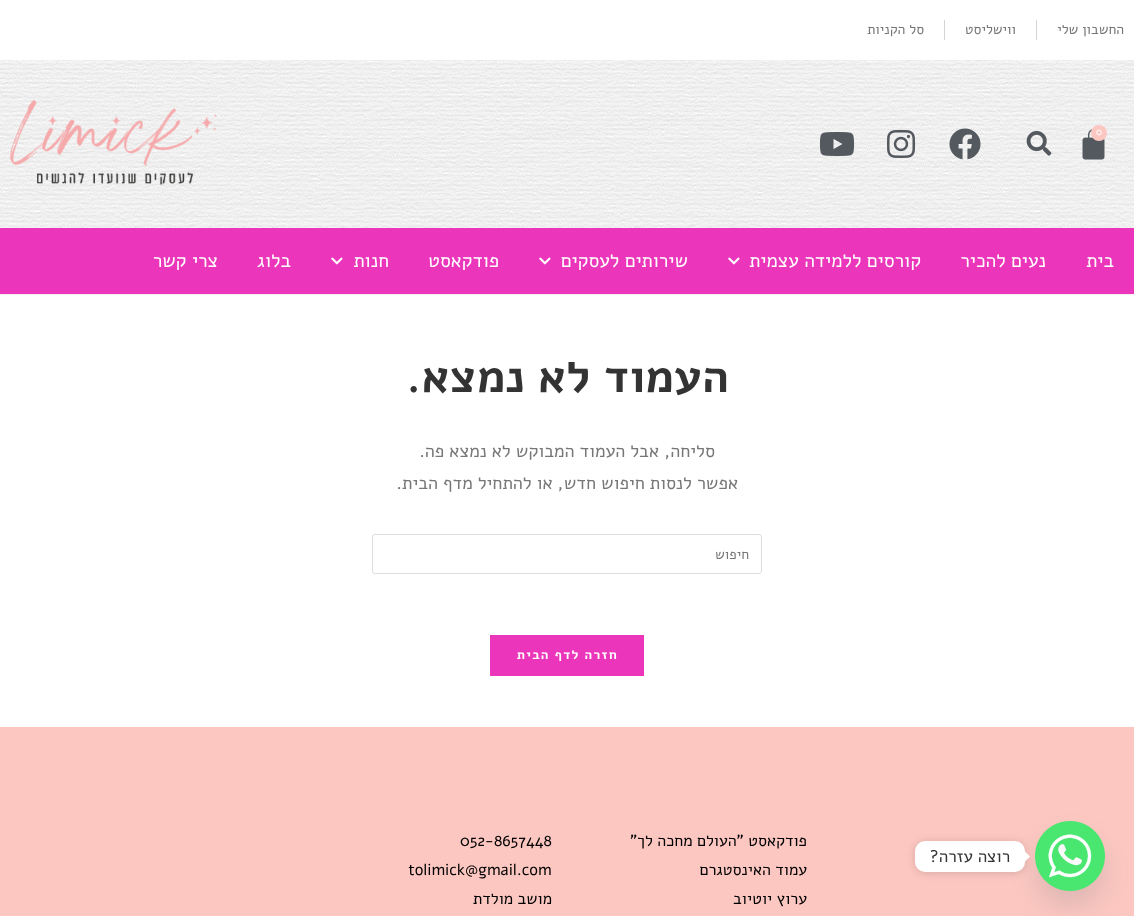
async function draw(canvas) {
  canvas.width = 1134
  canvas.height = 916
  const ctx = canvas.getContext('2d')
  ctx.miterLimit = 4
  ctx.fontKerning = 'normal'
  async function loadImage(src) {
    const img = new Image()
    img.src = src
    await img.decode()
    return img
  }

  ctx.fillStyle = '#fff'
  ctx.fillRect(0, 0, 1134, 916)
  ctx.fillStyle = '#f1f1f1'
  ctx.fillRect(0, 294, 1134, 1)
  ctx.direction = 'rtl'
  ctx.font = '14px Alef'
  ctx.fillStyle = '#777'
  ctx.fillText('החשבון שלי', 1124, 34)
  ctx.fillStyle = '#d3d3d3'
  ctx.fillRect(1036, 20, 1, 20)
  ctx.fillRect(944, 20, 1, 20)
  ctx.fillStyle = '#777'
  ctx.fillText('ווישליסט', 1016, 34)
  ctx.fillText('סל הקניות', 924, 34)
  ctx.drawImage(await loadImage('image0.png'), 0, 60, 1134, 168)
  ctx.drawImage(await loadImage('image1.png'), 1082, 129, 23, 31)
  ctx.fillStyle = '#fcc7c0'
  ctx.beginPath()
  ctx.arc(1099, 133, 8, 0, 2 * Math.PI)
  ctx.fill()
  ctx.direction = 'ltr'
  ctx.font = '10px Alef'
  ctx.fillStyle = '#fff'
  ctx.fillText('0', 1096, 135)
  ctx.drawImage(await loadImage('image2.png'), 1026, 131, 26, 25)
  ctx.drawImage(await loadImage('image3.png'), 949, 128, 32, 32)
  ctx.drawImage(await loadImage('image4.png'), 887, 129, 29, 29)
  ctx.drawImage(await loadImage('image5.png'), 819, 132, 36, 24)
  ctx.drawImage(await loadImage('image6.png'), 10, 100, 207, 85)
  ctx.fillStyle = '#eb35ba'
  ctx.fillRect(0, 228, 1134, 66)
  ctx.direction = 'rtl'
  ctx.font = '19.25px Alef'
  ctx.fillStyle = '#fff'
  ctx.fillText('בית', 1114, 267)
  ctx.fillText('נעים להכיר', 1046, 267)
  ctx.fillText('קורסים ללמידה עצמית', 921, 267)
  ctx.drawImage(await loadImage('image7.png'), 728, 257, 12, 8)
  ctx.fillText('שירותים לעסקים', 688, 267)
  ctx.drawImage(await loadImage('image7.png'), 539, 257, 12, 8)
  ctx.fillText('פודקאסט', 499, 267)
  ctx.fillText('חנות', 389, 267)
  ctx.drawImage(await loadImage('image7.png'), 331, 257, 12, 8)
  ctx.fillText('בלוג', 291, 267)
  ctx.fillText('צרי קשר', 218, 267)
  ctx.font = 'bold 46px Alef'
  ctx.fillStyle = '#333'
  ctx.fillText('העמוד לא נמצא.', 729, 392)
  ctx.font = '18px Alef'
  ctx.fillStyle = '#777'
  ctx.fillText('סליחה, אבל העמוד המבוקש לא נמצא פה.', 715, 457)
  ctx.fillText('אפשר לנסות חיפוש חדש, או להתחיל מדף הבית.', 738, 489)
  ctx.beginPath()
  ctx.roundRect(372.5, 534.5, 389, 39, 2.5)
  ctx.strokeStyle = '#ddd'
  ctx.stroke()
  ctx.font = '14px Alef'
  ctx.fillText('חיפוש', 749, 559)
  ctx.fillStyle = '#eb35ba'
  ctx.fillRect(490, 635, 154, 41)
  ctx.letterSpacing = '1.25px'
  ctx.font = 'bold 13px Alef'
  ctx.fillStyle = '#fff'
  ctx.fillText('חזרה לדף הבית', 618, 659)
  ctx.fillStyle = '#fcc7c0'
  ctx.fillRect(0, 727, 1134, 189)
  ctx.letterSpacing = '0px'
  ctx.font = '16px Alef'
  ctx.fillStyle = '#000'
  ctx.fillText('פודקאסט "העולם מחכה לך"', 807, 846)
  ctx.fillText('עמוד האינסטגרם', 807, 875)
  ctx.fillText('ערוץ יוטיוב', 807, 904)
  ctx.direction = 'ltr'
  ctx.fillText('052-8657448', 460, 846)
  ctx.fillText('tolimick@gmail.com', 408, 875)
  ctx.direction = 'rtl'
  ctx.fillText('מושב מולדת', 552, 904)
  ctx.fillStyle = '#49687e29'
  ctx.filter = 'blur(12px)'
  ctx.beginPath()
  ctx.roundRect(1035, 837, 70, 70, 35)
  ctx.fill()
  ctx.filter = 'none'
  ctx.drawImage(await loadImage('image8.png'), 1035, 821, 70, 70)
  ctx.fillStyle = '#00000026'
  ctx.filter = 'blur(4px)'
  ctx.beginPath()
  ctx.roundRect(915, 842, 110, 31, 10)
  ctx.fill()
  ctx.filter = 'none'
  ctx.fillStyle = '#fff'
  ctx.beginPath()
  ctx.roundRect(915, 841, 110, 31, 10)
  ctx.fill()
  ctx.beginPath()
  ctx.moveTo(1025, 861.5)
  ctx.lineTo(1025, 851.5)
  ctx.lineTo(1030, 856.5)
  ctx.closePath()
  ctx.fill()
  ctx.font = '17px Alef'
  ctx.fillStyle = '#333'
  ctx.fillText('רוצה עזרה?', 1010, 862)
}

draw(document.querySelector('canvas'))
